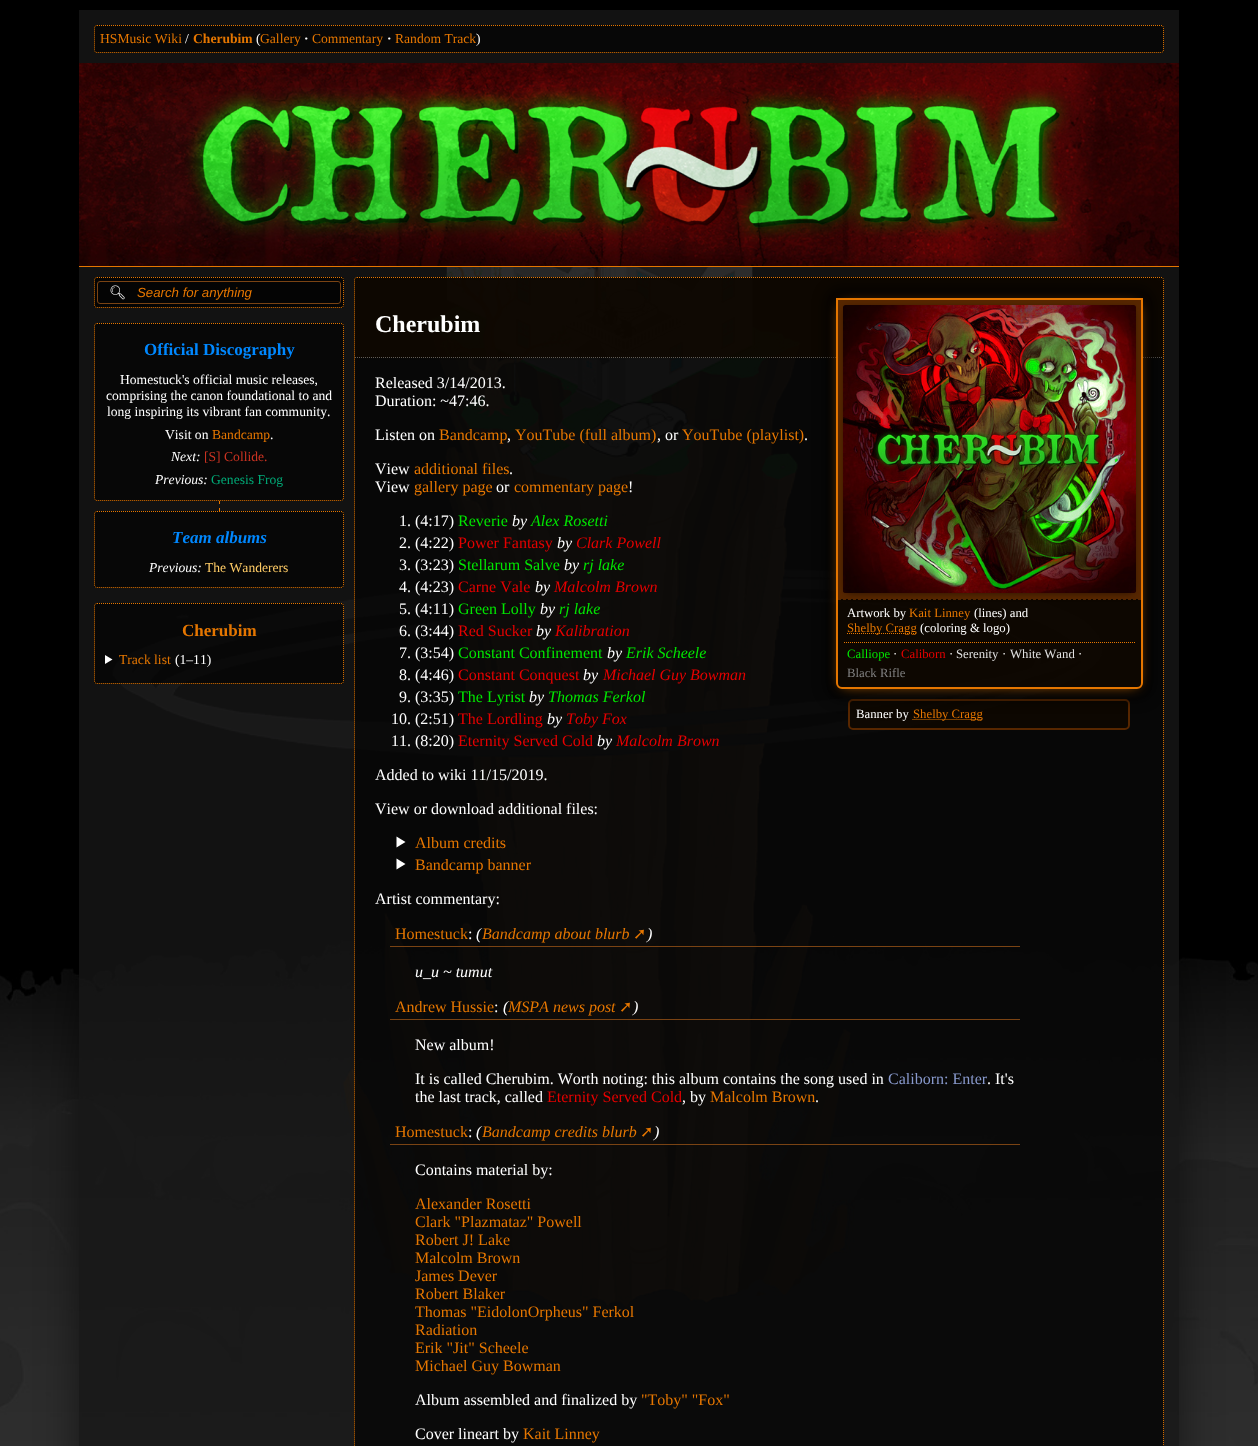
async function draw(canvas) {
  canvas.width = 1258
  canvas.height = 1446
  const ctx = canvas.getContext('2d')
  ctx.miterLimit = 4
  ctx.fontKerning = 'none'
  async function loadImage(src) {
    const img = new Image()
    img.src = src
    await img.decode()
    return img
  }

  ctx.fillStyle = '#000'
  ctx.fillRect(0, 0, 1258, 1446)
  ctx.drawImage(await loadImage('image2.png'), 0, 178, 1258, 1268)
  ctx.save()
  ctx.beginPath()
  ctx.moveTo(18, 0)
  ctx.lineTo(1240, 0)
  ctx.lineTo(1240, 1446)
  ctx.lineTo(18, 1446)
  ctx.closePath()
  ctx.moveTo(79, 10)
  ctx.lineTo(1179, 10)
  ctx.lineTo(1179, 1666)
  ctx.lineTo(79, 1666)
  ctx.closePath()
  ctx.clip('evenodd')
  ctx.fillStyle = '#00000080'
  ctx.filter = 'blur(20px)'
  ctx.beginPath()
  ctx.rect(79, 10, 1100, 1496)
  ctx.fill()
  ctx.filter = 'none'
  ctx.restore()
  ctx.fillStyle = '#161616cc'
  ctx.fillRect(79, 10, 1100, 1436)
  ctx.fillStyle = '#070707'
  ctx.beginPath()
  ctx.roundRect(94, 25, 1070, 28, 3)
  ctx.fill()
  ctx.beginPath()
  ctx.moveTo(97, 25.5)
  ctx.lineTo(1161, 25.5)
  ctx.bezierCurveTo(1162.5, 25.5, 1163.5, 26.5, 1163.5, 28)
  ctx.lineTo(1163.5, 50)
  ctx.bezierCurveTo(1163.5, 51.5, 1162.5, 52.5, 1161, 52.5)
  ctx.lineTo(97, 52.5)
  ctx.bezierCurveTo(95.5, 52.5, 94.5, 51.5, 94.5, 50)
  ctx.lineTo(94.5, 28)
  ctx.bezierCurveTo(94.5, 26.5, 95.5, 25.5, 97, 25.5)
  ctx.closePath()
  ctx.strokeStyle = '#e57600'
  ctx.setLineDash([1, 1])
  ctx.stroke()
  ctx.font = '13.6px Liberation Serif'
  ctx.fillStyle = '#e57600'
  ctx.fillText('HSMusic Wiki', 100, 43)
  ctx.fillStyle = '#fff'
  ctx.fillText('/', 185, 43)
  ctx.font = 'bold 13.6px Liberation Serif'
  ctx.fillStyle = '#e57600'
  ctx.fillText('Cherubim', 193, 43)
  ctx.font = '13.6px Liberation Serif'
  ctx.fillStyle = '#fff'
  ctx.fillText('(', 256, 43)
  ctx.fillStyle = '#e57600'
  ctx.fillText('Gallery', 260, 43)
  ctx.font = 'bold 13.6px Liberation Serif'
  ctx.fillStyle = '#fff'
  ctx.fillText('·', 304, 43)
  ctx.font = '13.6px Liberation Serif'
  ctx.fillStyle = '#e57600'
  ctx.fillText('Commentary', 312, 43)
  ctx.font = 'bold 13.6px Liberation Serif'
  ctx.fillStyle = '#fff'
  ctx.fillText('·', 387, 43)
  ctx.font = '13.6px Liberation Serif'
  ctx.fillStyle = '#e57600'
  ctx.fillText('Random Track', 395, 43)
  ctx.fillStyle = '#fff'
  ctx.fillText(')', 476, 43)
  ctx.fillStyle = '#e57600'
  ctx.fillRect(79, 266, 1100, 1)
  ctx.drawImage(await loadImage('image0.png'), 79, 63, 1100, 203)
  ctx.fillStyle = '#040404'
  ctx.beginPath()
  ctx.roundRect(94, 277, 250, 31, 3)
  ctx.fill()
  ctx.beginPath()
  ctx.moveTo(97, 277.5)
  ctx.lineTo(341, 277.5)
  ctx.bezierCurveTo(342.5, 277.5, 343.5, 278.5, 343.5, 280)
  ctx.lineTo(343.5, 305)
  ctx.bezierCurveTo(343.5, 306.5, 342.5, 307.5, 341, 307.5)
  ctx.lineTo(97, 307.5)
  ctx.bezierCurveTo(95.5, 307.5, 94.5, 306.5, 94.5, 305)
  ctx.lineTo(94.5, 280)
  ctx.bezierCurveTo(94.5, 278.5, 95.5, 277.5, 97, 277.5)
  ctx.closePath()
  ctx.stroke()
  ctx.beginPath()
  ctx.roundRect(97.5, 281.5, 243, 22, 2.5)
  ctx.strokeStyle = '#7a4313'
  ctx.setLineDash([])
  ctx.stroke()
  ctx.font = '13.6px Noto Emoji'
  ctx.fillStyle = '#fff'
  ctx.fillText('🔍︎', 109, 297)
  ctx.font = 'italic 13.25px Liberation Sans'
  ctx.fillStyle = '#e57600'
  ctx.fillText('Search for anything', 137, 297)
  ctx.fillStyle = '#070707'
  ctx.beginPath()
  ctx.roundRect(94, 323, 250, 178, 3)
  ctx.fill()
  ctx.beginPath()
  ctx.moveTo(97, 323.5)
  ctx.lineTo(341, 323.5)
  ctx.bezierCurveTo(342.5, 323.5, 343.5, 324.5, 343.5, 326)
  ctx.lineTo(343.5, 498)
  ctx.bezierCurveTo(343.5, 499.5, 342.5, 500.5, 341, 500.5)
  ctx.lineTo(97, 500.5)
  ctx.bezierCurveTo(95.5, 500.5, 94.5, 499.5, 94.5, 498)
  ctx.lineTo(94.5, 326)
  ctx.bezierCurveTo(94.5, 324.5, 95.5, 323.5, 97, 323.5)
  ctx.closePath()
  ctx.strokeStyle = '#e57600'
  ctx.setLineDash([1, 1])
  ctx.stroke()
  ctx.font = 'bold 17px Liberation Serif'
  ctx.fillStyle = '#08f'
  ctx.fillText('Official Discography', 144, 355)
  ctx.font = '13.6px Liberation Serif'
  ctx.fillStyle = '#fff'
  ctx.fillText('Homestuck\'s official music releases,', 120, 384)
  ctx.fillText('comprising the canon foundational to and', 106, 400)
  ctx.fillText('long inspiring its vibrant fan community.', 107, 416)
  ctx.fillText('Visit on', 165, 439)
  ctx.fillStyle = '#e57600'
  ctx.fillText('Bandcamp', 212, 439)
  ctx.fillStyle = '#fff'
  ctx.fillText('.', 270, 439)
  ctx.font = 'italic 13.6px Liberation Serif'
  ctx.fillText('Next:', 171, 461)
  ctx.font = '13.6px Liberation Serif'
  ctx.fillStyle = '#c32'
  ctx.fillText('[S] Collide.', 204, 461)
  ctx.font = 'italic 13.6px Liberation Serif'
  ctx.fillStyle = '#fff'
  ctx.fillText('Previous:', 155, 484)
  ctx.font = '13.6px Liberation Serif'
  ctx.fillStyle = '#0a7'
  ctx.fillText('Genesis Frog', 211, 484)
  ctx.beginPath()
  ctx.moveTo(219.5, 501)
  ctx.lineTo(219.5, 504)
  ctx.moveTo(219.5, 508)
  ctx.lineTo(219.5, 511)
  ctx.setLineDash([])
  ctx.stroke()
  ctx.fillStyle = '#070707'
  ctx.beginPath()
  ctx.roundRect(94, 511, 250, 77, 3)
  ctx.fill()
  ctx.beginPath()
  ctx.moveTo(97, 511.5)
  ctx.lineTo(341, 511.5)
  ctx.bezierCurveTo(342.5, 511.5, 343.5, 512.5, 343.5, 514)
  ctx.lineTo(343.5, 585)
  ctx.bezierCurveTo(343.5, 586.5, 342.5, 587.5, 341, 587.5)
  ctx.lineTo(97, 587.5)
  ctx.bezierCurveTo(95.5, 587.5, 94.5, 586.5, 94.5, 585)
  ctx.lineTo(94.5, 514)
  ctx.bezierCurveTo(94.5, 512.5, 95.5, 511.5, 97, 511.5)
  ctx.closePath()
  ctx.setLineDash([1, 1])
  ctx.stroke()
  ctx.font = 'italic bold 17px Liberation Serif'
  ctx.fillStyle = '#08f'
  ctx.fillText('Team albums', 172, 543)
  ctx.font = 'italic 13.6px Liberation Serif'
  ctx.fillStyle = '#fff'
  ctx.fillText('Previous:', 149, 572)
  ctx.font = '13.6px Liberation Serif'
  ctx.fillStyle = '#fc6'
  ctx.fillText('The Wanderers', 205, 572)
  ctx.fillStyle = '#00000099'
  ctx.beginPath()
  ctx.roundRect(94, 603, 250, 81, 3)
  ctx.fill()
  ctx.beginPath()
  ctx.moveTo(97, 603.5)
  ctx.lineTo(341, 603.5)
  ctx.bezierCurveTo(342.5, 603.5, 343.5, 604.5, 343.5, 606)
  ctx.lineTo(343.5, 681)
  ctx.bezierCurveTo(343.5, 682.5, 342.5, 683.5, 341, 683.5)
  ctx.lineTo(97, 683.5)
  ctx.bezierCurveTo(95.5, 683.5, 94.5, 682.5, 94.5, 681)
  ctx.lineTo(94.5, 606)
  ctx.bezierCurveTo(94.5, 604.5, 95.5, 603.5, 97, 603.5)
  ctx.closePath()
  ctx.stroke()
  ctx.font = 'bold 17px Liberation Serif'
  ctx.fillStyle = '#e57600'
  ctx.fillText('Cherubim', 182, 636)
  ctx.fillStyle = '#fff'
  ctx.beginPath()
  ctx.moveTo(105, 655)
  ctx.lineTo(112.5, 659.5)
  ctx.lineTo(105, 664)
  ctx.closePath()
  ctx.fill()
  ctx.font = '13.6px Liberation Serif'
  ctx.fillStyle = '#e57600'
  ctx.fillText('Track list', 119, 664)
  ctx.fillStyle = '#fff'
  ctx.fillText('(1–11)', 175, 664)
  ctx.fillStyle = '#00000099'
  ctx.beginPath()
  ctx.roundRect(354, 277, 810, 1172, 3)
  ctx.fill()
  ctx.beginPath()
  ctx.moveTo(357, 277.5)
  ctx.lineTo(1161, 277.5)
  ctx.bezierCurveTo(1162.5, 277.5, 1163.5, 278.5, 1163.5, 280)
  ctx.lineTo(1163.5, 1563)
  ctx.bezierCurveTo(1163.5, 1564.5, 1162.5, 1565.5, 1161, 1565.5)
  ctx.lineTo(357, 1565.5)
  ctx.bezierCurveTo(355.5, 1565.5, 354.5, 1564.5, 354.5, 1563)
  ctx.lineTo(354.5, 280)
  ctx.bezierCurveTo(354.5, 278.5, 355.5, 277.5, 357, 277.5)
  ctx.closePath()
  ctx.stroke()
  ctx.fillStyle = '#0f0700cc'
  ctx.beginPath()
  ctx.roundRect(355, 278, 808, 80, [2, 2, 0, 0])
  ctx.fill()
  ctx.beginPath()
  ctx.moveTo(355, 357.5)
  ctx.lineTo(1163, 357.5)
  ctx.strokeStyle = '#605d59'
  ctx.stroke()
  ctx.font = 'bold 24px Liberation Serif'
  ctx.fillStyle = '#fff'
  ctx.fillText('Cherubim', 375, 332)
  ctx.font = '16px Liberation Serif'
  ctx.fillText('Released 3/14/2013.', 375, 388)
  ctx.fillText('Duration: ~47:46.', 375, 406)
  ctx.fillText('Listen on', 375, 440)
  ctx.fillStyle = '#e57600'
  ctx.fillText('Bandcamp', 439, 440)
  ctx.fillStyle = '#fff'
  ctx.fillText(',', 507, 440)
  ctx.fillStyle = '#e57600'
  ctx.fillText('YouTube (full album)', 515, 440)
  ctx.fillStyle = '#fff'
  ctx.fillText(', or', 657, 440)
  ctx.fillStyle = '#e57600'
  ctx.fillText('YouTube (playlist)', 682, 440)
  ctx.fillStyle = '#fff'
  ctx.fillText('.', 804, 440)
  ctx.fillText('View', 375, 474)
  ctx.fillStyle = '#e57600'
  ctx.fillText('additional files', 414, 474)
  ctx.fillStyle = '#fff'
  ctx.fillText('.', 509, 474)
  ctx.fillText('View', 375, 492)
  ctx.fillStyle = '#e57600'
  ctx.fillText('gallery page', 414, 492)
  ctx.fillStyle = '#fff'
  ctx.fillText('or', 496, 492)
  ctx.fillStyle = '#e57600'
  ctx.fillText('commentary page', 514, 492)
  ctx.fillStyle = '#fff'
  ctx.fillText('!', 628, 492)
  ctx.fillText('1. (4:17)', 399, 526)
  ctx.fillStyle = '#00e500'
  ctx.fillText('Reverie', 458, 526)
  ctx.font = 'italic 16px Liberation Serif'
  ctx.fillStyle = '#fff'
  ctx.fillText('by', 512, 526)
  ctx.fillStyle = '#00e500'
  ctx.fillText('Alex Rosetti', 531, 526)
  ctx.font = '16px Liberation Serif'
  ctx.fillStyle = '#fff'
  ctx.fillText('2. (4:22)', 399, 548)
  ctx.fillStyle = '#e50000'
  ctx.fillText('Power Fantasy', 458, 548)
  ctx.font = 'italic 16px Liberation Serif'
  ctx.fillStyle = '#fff'
  ctx.fillText('by', 557, 548)
  ctx.fillStyle = '#e50000'
  ctx.fillText('Clark Powell', 576, 548)
  ctx.font = '16px Liberation Serif'
  ctx.fillStyle = '#fff'
  ctx.fillText('3. (3:23)', 399, 570)
  ctx.fillStyle = '#00e500'
  ctx.fillText('Stellarum Salve', 458, 570)
  ctx.font = 'italic 16px Liberation Serif'
  ctx.fillStyle = '#fff'
  ctx.fillText('by', 564, 570)
  ctx.fillStyle = '#00e500'
  ctx.fillText('rj lake', 583, 570)
  ctx.font = '16px Liberation Serif'
  ctx.fillStyle = '#fff'
  ctx.fillText('4. (4:23)', 399, 592)
  ctx.fillStyle = '#e50000'
  ctx.fillText('Carne Vale', 458, 592)
  ctx.font = 'italic 16px Liberation Serif'
  ctx.fillStyle = '#fff'
  ctx.fillText('by', 535, 592)
  ctx.fillStyle = '#e50000'
  ctx.fillText('Malcolm Brown', 554, 592)
  ctx.font = '16px Liberation Serif'
  ctx.fillStyle = '#fff'
  ctx.fillText('5. (4:11)', 399, 614)
  ctx.fillStyle = '#00e500'
  ctx.fillText('Green Lolly', 458, 614)
  ctx.font = 'italic 16px Liberation Serif'
  ctx.fillStyle = '#fff'
  ctx.fillText('by', 540, 614)
  ctx.fillStyle = '#00e500'
  ctx.fillText('rj lake', 559, 614)
  ctx.font = '16px Liberation Serif'
  ctx.fillStyle = '#fff'
  ctx.fillText('6. (3:44)', 399, 636)
  ctx.fillStyle = '#e50000'
  ctx.fillText('Red Sucker', 458, 636)
  ctx.font = 'italic 16px Liberation Serif'
  ctx.fillStyle = '#fff'
  ctx.fillText('by', 536, 636)
  ctx.fillStyle = '#e50000'
  ctx.fillText('Kalibration', 555, 636)
  ctx.font = '16px Liberation Serif'
  ctx.fillStyle = '#fff'
  ctx.fillText('7. (3:54)', 399, 658)
  ctx.fillStyle = '#00e500'
  ctx.fillText('Constant Confinement', 458, 658)
  ctx.font = 'italic 16px Liberation Serif'
  ctx.fillStyle = '#fff'
  ctx.fillText('by', 607, 658)
  ctx.fillStyle = '#00e500'
  ctx.fillText('Erik Scheele', 626, 658)
  ctx.font = '16px Liberation Serif'
  ctx.fillStyle = '#fff'
  ctx.fillText('8. (4:46)', 399, 680)
  ctx.fillStyle = '#e50000'
  ctx.fillText('Constant Conquest', 458, 680)
  ctx.font = 'italic 16px Liberation Serif'
  ctx.fillStyle = '#fff'
  ctx.fillText('by', 583, 680)
  ctx.fillStyle = '#e50000'
  ctx.fillText('Michael Guy Bowman', 603, 680)
  ctx.font = '16px Liberation Serif'
  ctx.fillStyle = '#fff'
  ctx.fillText('9. (3:35)', 399, 702)
  ctx.fillStyle = '#00e500'
  ctx.fillText('The Lyrist', 458, 702)
  ctx.font = 'italic 16px Liberation Serif'
  ctx.fillStyle = '#fff'
  ctx.fillText('by', 529, 702)
  ctx.fillStyle = '#00e500'
  ctx.fillText('Thomas Ferkol', 548, 702)
  ctx.font = '16px Liberation Serif'
  ctx.fillStyle = '#fff'
  ctx.fillText('10. (2:51)', 391, 724)
  ctx.fillStyle = '#e50000'
  ctx.fillText('The Lordling', 458, 724)
  ctx.font = 'italic 16px Liberation Serif'
  ctx.fillStyle = '#fff'
  ctx.fillText('by', 547, 724)
  ctx.fillStyle = '#e50000'
  ctx.fillText('Toby Fox', 566, 724)
  ctx.font = '16px Liberation Serif'
  ctx.fillStyle = '#fff'
  ctx.fillText('11. (8:20)', 391, 746)
  ctx.fillStyle = '#e50000'
  ctx.fillText('Eternity Served Cold', 458, 746)
  ctx.font = 'italic 16px Liberation Serif'
  ctx.fillStyle = '#fff'
  ctx.fillText('by', 597, 746)
  ctx.fillStyle = '#e50000'
  ctx.fillText('Malcolm Brown', 616, 746)
  ctx.font = '16px Liberation Serif'
  ctx.fillStyle = '#fff'
  ctx.fillText('Added to wiki 11/15/2019.', 375, 780)
  ctx.fillText('View or download additional files:', 375, 814)
  ctx.beginPath()
  ctx.moveTo(396.5, 836.5)
  ctx.lineTo(405.5, 842)
  ctx.lineTo(396.5, 847.5)
  ctx.closePath()
  ctx.fill()
  ctx.fillStyle = '#e57600'
  ctx.fillText('Album credits', 415, 848)
  ctx.fillStyle = '#fff'
  ctx.beginPath()
  ctx.moveTo(396.5, 858.5)
  ctx.lineTo(405.5, 864)
  ctx.lineTo(396.5, 869.5)
  ctx.closePath()
  ctx.fill()
  ctx.fillStyle = '#e57600'
  ctx.fillText('Bandcamp banner', 415, 870)
  ctx.fillStyle = '#fff'
  ctx.fillText('Artist commentary:', 375, 904)
  ctx.fillStyle = '#7a4313'
  ctx.fillRect(390, 946, 630, 1)
  ctx.fillStyle = '#e57600'
  ctx.fillText('Homestuck', 395, 939)
  ctx.fillStyle = '#fff'
  ctx.fillText(':', 468, 939)
  ctx.font = 'italic 16px Liberation Serif'
  ctx.fillText('(', 476, 939)
  ctx.fillStyle = '#e57600'
  ctx.fillText('Bandcamp about blurb', 482, 939)
  ctx.font = '16px DejaVu Sans'
  ctx.fillText('➚', 633, 939)
  ctx.font = 'italic 16px Liberation Serif'
  ctx.fillStyle = '#fff'
  ctx.fillText(')', 647, 939)
  ctx.fillText('u_u ~ tumut', 415, 977)
  ctx.fillStyle = '#7a4313'
  ctx.fillRect(390, 1019, 630, 1)
  ctx.font = '16px Liberation Serif'
  ctx.fillStyle = '#e57600'
  ctx.fillText('Andrew Hussie', 395, 1012)
  ctx.fillStyle = '#fff'
  ctx.fillText(':', 494, 1012)
  ctx.font = 'italic 16px Liberation Serif'
  ctx.fillText('(', 503, 1012)
  ctx.fillStyle = '#e57600'
  ctx.fillText('MSPA news post', 508, 1012)
  ctx.font = '16px DejaVu Sans'
  ctx.fillText('➚', 619, 1012)
  ctx.font = 'italic 16px Liberation Serif'
  ctx.fillStyle = '#fff'
  ctx.fillText(')', 633, 1012)
  ctx.font = '16px Liberation Serif'
  ctx.fillText('New album!', 415, 1050)
  ctx.fillText('It is called Cherubim. Worth noting: this album contains the song used in', 415, 1084)
  ctx.fillStyle = '#89c'
  ctx.fillText('Caliborn: Enter', 888, 1084)
  ctx.fillStyle = '#fff'
  ctx.fillText('. It\'s', 987, 1084)
  ctx.fillText('the last track, called', 415, 1102)
  ctx.fillStyle = '#e50000'
  ctx.fillText('Eternity Served Cold', 547, 1102)
  ctx.fillStyle = '#fff'
  ctx.fillText(', by', 682, 1102)
  ctx.fillStyle = '#e57600'
  ctx.fillText('Malcolm Brown', 710, 1102)
  ctx.fillStyle = '#fff'
  ctx.fillText('.', 815, 1102)
  ctx.fillStyle = '#7a4313'
  ctx.fillRect(390, 1144, 630, 1)
  ctx.fillStyle = '#e57600'
  ctx.fillText('Homestuck', 395, 1137)
  ctx.fillStyle = '#fff'
  ctx.fillText(':', 468, 1137)
  ctx.font = 'italic 16px Liberation Serif'
  ctx.fillText('(', 476, 1137)
  ctx.fillStyle = '#e57600'
  ctx.fillText('Bandcamp credits blurb', 482, 1137)
  ctx.font = '16px DejaVu Sans'
  ctx.fillText('➚', 640, 1137)
  ctx.font = 'italic 16px Liberation Serif'
  ctx.fillStyle = '#fff'
  ctx.fillText(')', 654, 1137)
  ctx.font = '16px Liberation Serif'
  ctx.fillText('Contains material by:', 415, 1175)
  ctx.fillStyle = '#e57600'
  ctx.fillText('Alexander Rosetti', 415, 1209)
  ctx.fillText('Clark "Plazmataz" Powell', 415, 1227)
  ctx.fillText('Robert J! Lake', 415, 1245)
  ctx.fillText('Malcolm Brown', 415, 1263)
  ctx.fillText('James Dever', 415, 1281)
  ctx.fillText('Robert Blaker', 415, 1299)
  ctx.fillText('Thomas "EidolonOrpheus" Ferkol', 415, 1317)
  ctx.fillText('Radiation', 415, 1335)
  ctx.fillText('Erik "Jit" Scheele', 415, 1353)
  ctx.fillText('Michael Guy Bowman', 415, 1371)
  ctx.fillStyle = '#fff'
  ctx.fillText('Album assembled and finalized by', 415, 1405)
  ctx.fillStyle = '#e57600'
  ctx.fillText('"Toby" "Fox"', 641, 1405)
  ctx.fillStyle = '#fff'
  ctx.fillText('Cover lineart by', 415, 1439)
  ctx.fillStyle = '#e57600'
  ctx.fillText('Kait Linney', 523, 1439)
  ctx.fillStyle = '#0f0700cc'
  ctx.beginPath()
  ctx.roundRect(849, 700, 280, 29, 4)
  ctx.fill()
  ctx.strokeStyle = '#582700'
  ctx.lineWidth = 2
  ctx.setLineDash([])
  ctx.stroke()
  ctx.beginPath()
  ctx.moveTo(912.5, 719.5)
  ctx.lineTo(982.5, 719.5)
  ctx.strokeStyle = '#e57600'
  ctx.lineWidth = 1
  ctx.setLineDash([1, 1])
  ctx.stroke()
  ctx.save()
  ctx.beginPath()
  ctx.roundRect(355, 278, 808, 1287, 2)
  ctx.clip()
  ctx.beginPath()
  ctx.moveTo(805, 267)
  ctx.lineTo(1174, 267)
  ctx.lineTo(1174, 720)
  ctx.lineTo(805, 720)
  ctx.closePath()
  ctx.moveTo(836, 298)
  ctx.lineTo(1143, 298)
  ctx.lineTo(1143, 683)
  ctx.bezierCurveTo(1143, 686.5, 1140.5, 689, 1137, 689)
  ctx.lineTo(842, 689)
  ctx.bezierCurveTo(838.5, 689, 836, 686.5, 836, 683)
  ctx.closePath()
  ctx.clip('evenodd')
  ctx.fillStyle = '#00000080'
  ctx.filter = 'blur(6px)'
  ctx.beginPath()
  ctx.roundRect(824, 286, 331, 415, 18)
  ctx.fill()
  ctx.filter = 'none'
  ctx.restore()
  ctx.save()
  ctx.beginPath()
  ctx.moveTo(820, 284)
  ctx.lineTo(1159, 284)
  ctx.lineTo(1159, 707)
  ctx.lineTo(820, 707)
  ctx.closePath()
  ctx.moveTo(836, 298)
  ctx.lineTo(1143, 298)
  ctx.lineTo(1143, 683)
  ctx.bezierCurveTo(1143, 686.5, 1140.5, 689, 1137, 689)
  ctx.lineTo(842, 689)
  ctx.bezierCurveTo(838.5, 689, 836, 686.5, 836, 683)
  ctx.closePath()
  ctx.clip('evenodd')
  ctx.fillStyle = '#e57600'
  ctx.filter = 'blur(7px)'
  ctx.beginPath()
  ctx.rect(842, 306, 295, 379)
  ctx.fill()
  ctx.filter = 'none'
  ctx.restore()
  ctx.beginPath()
  ctx.roundRect(837, 299, 305, 389, [0, 0, 5, 5])
  ctx.fill()
  ctx.lineWidth = 2
  ctx.setLineDash([])
  ctx.stroke()
  ctx.fillStyle = '#582700'
  ctx.fillRect(838, 300, 303, 299)
  ctx.beginPath()
  ctx.moveTo(838, 599.5)
  ctx.lineTo(1141, 599.5)
  ctx.strokeStyle = '#582700'
  ctx.lineWidth = 1
  ctx.setLineDash([3, 2])
  ctx.stroke()
  ctx.fillStyle = '#0f0700cc'
  ctx.filter = 'blur(4px)'
  ctx.beginPath()
  ctx.rect(846, 309, 287, 283)
  ctx.fill()
  ctx.filter = 'none'
  ctx.drawImage(await loadImage('image1.png'), 843, 305, 293, 288)
  ctx.font = '12.75px Liberation Serif'
  ctx.fillStyle = '#fff'
  ctx.fillText('Artwork by', 847, 617)
  ctx.fillStyle = '#e57600'
  ctx.fillText('Kait Linney', 909, 617)
  ctx.fillStyle = '#fff'
  ctx.fillText('(lines) and', 974, 617)
  ctx.beginPath()
  ctx.moveTo(847, 633.5)
  ctx.lineTo(917, 633.5)
  ctx.strokeStyle = '#e57600'
  ctx.setLineDash([1, 1])
  ctx.stroke()
  ctx.fillStyle = '#e57600'
  ctx.fillText('Shelby Cragg', 847, 632)
  ctx.fillStyle = '#fff'
  ctx.fillText('(coloring & logo)', 920, 632)
  ctx.beginPath()
  ctx.moveTo(844, 642.5)
  ctx.lineTo(1135, 642.5)
  ctx.stroke()
  ctx.fillStyle = '#00e500'
  ctx.fillText('Calliope', 847, 658)
  ctx.fillStyle = '#fff'
  ctx.fillText('·', 893, 658)
  ctx.fillStyle = '#e50000'
  ctx.fillText('Caliborn', 901, 658)
  ctx.fillStyle = '#fff'
  ctx.fillText('·', 949, 658)
  ctx.fillStyle = '#e0e0e0'
  ctx.fillText('Serenity', 956, 658)
  ctx.fillStyle = '#fff'
  ctx.fillText('·', 1002, 658)
  ctx.fillStyle = '#e0e0e0'
  ctx.fillText('White Wand', 1010, 658)
  ctx.fillStyle = '#fff'
  ctx.fillText('·', 1078, 658)
  ctx.fillStyle = '#818181'
  ctx.fillText('Black Rifle', 847, 677)
  ctx.fillStyle = '#fff'
  ctx.fillText('Banner by', 856, 718)
  ctx.fillStyle = '#e57600'
  ctx.fillText('Shelby Cragg', 913, 718)
}

draw(document.querySelector('canvas'))
